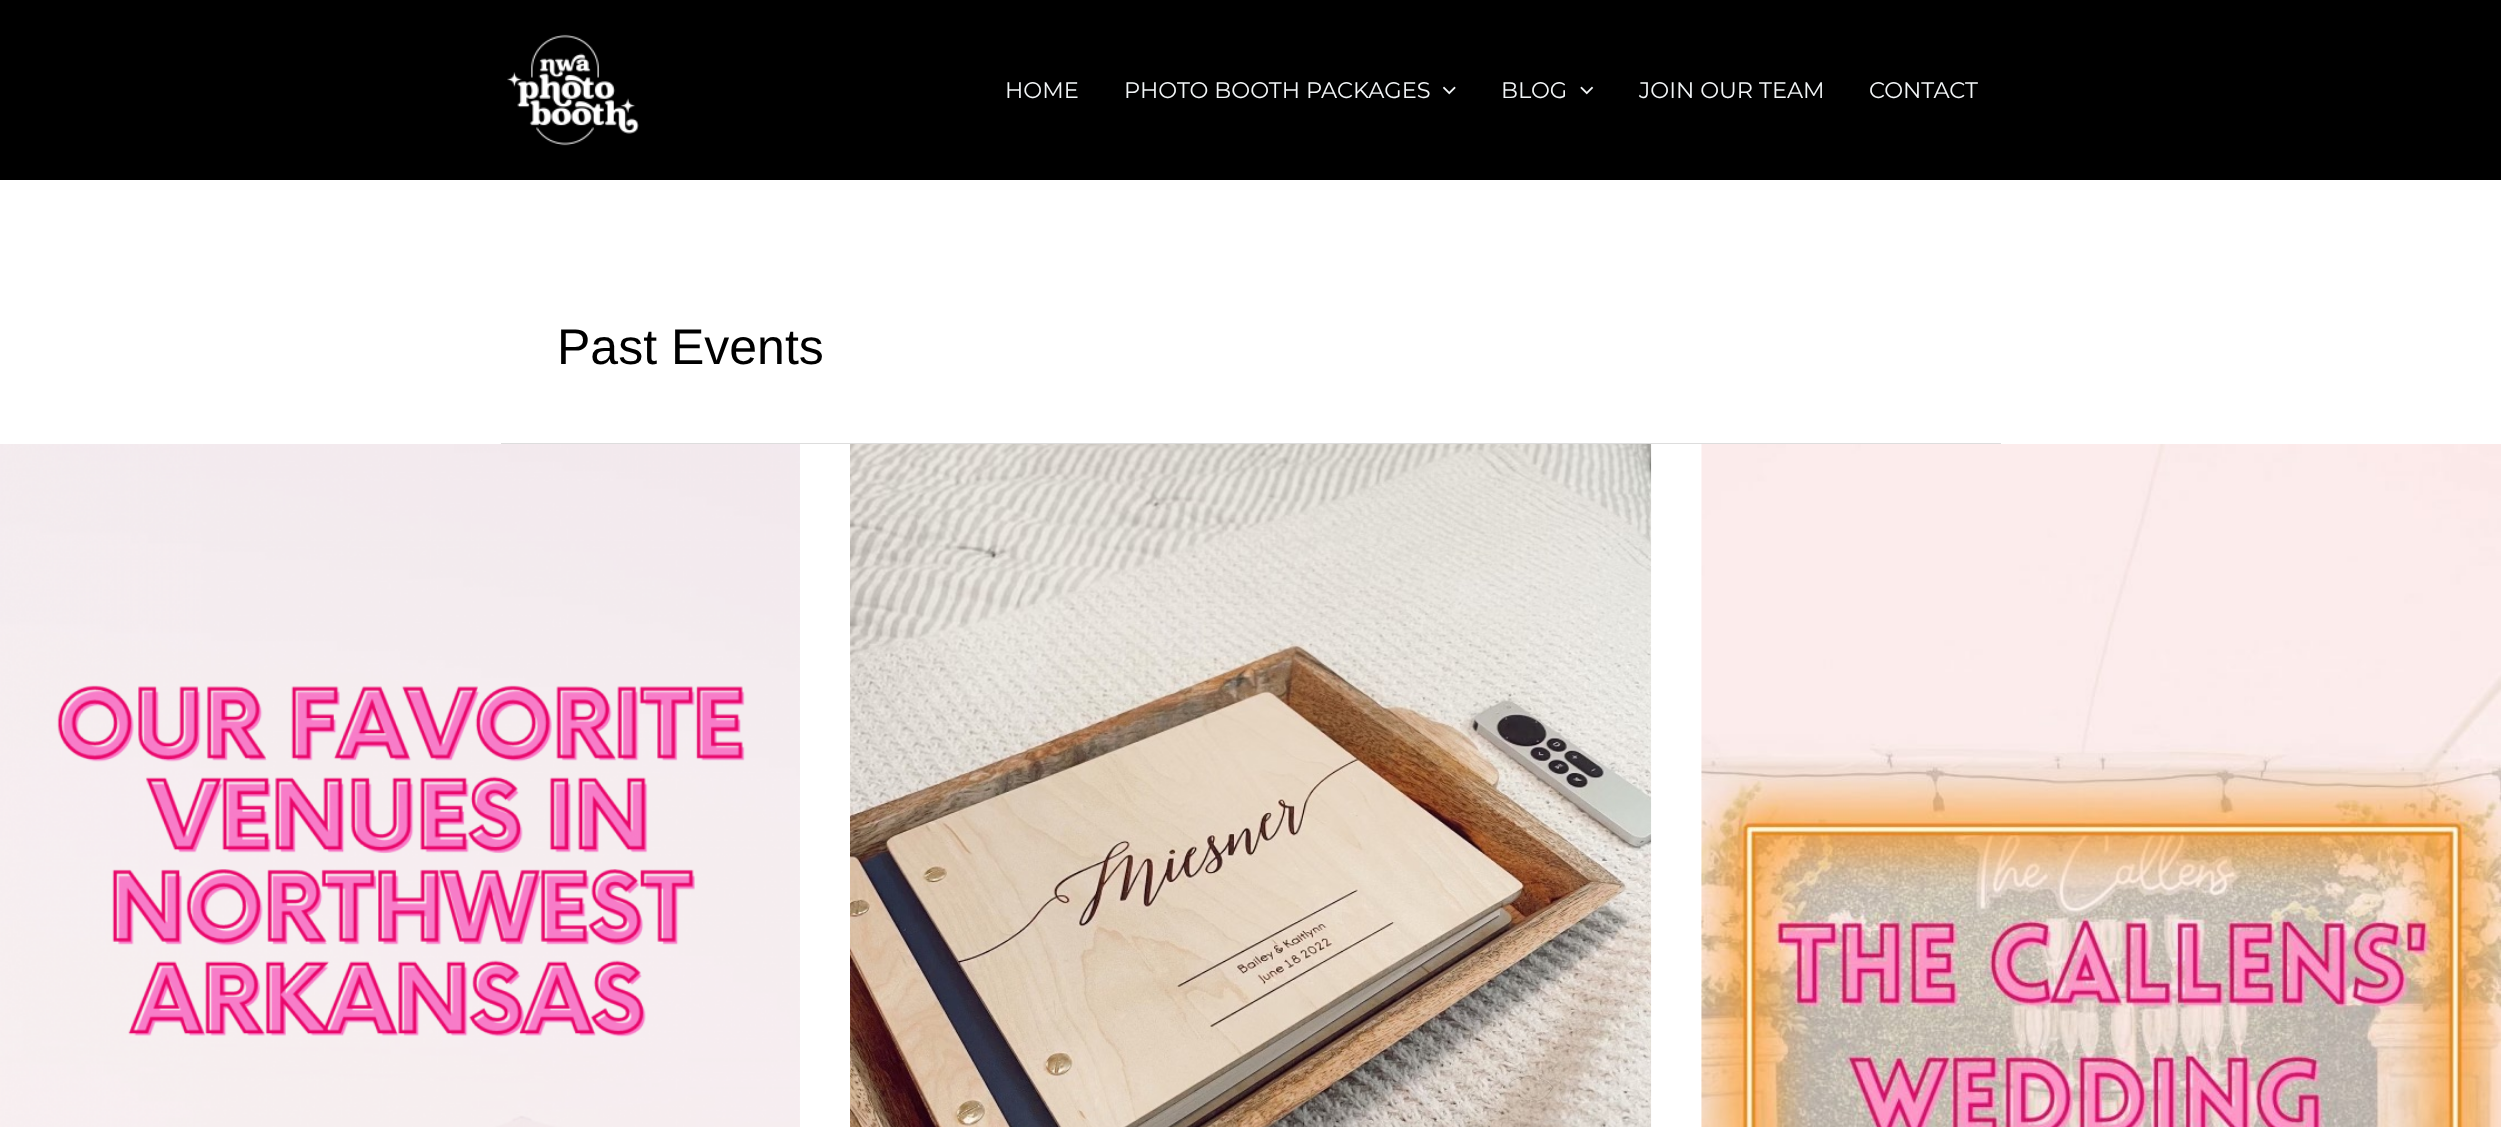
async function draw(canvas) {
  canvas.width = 2501
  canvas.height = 1127
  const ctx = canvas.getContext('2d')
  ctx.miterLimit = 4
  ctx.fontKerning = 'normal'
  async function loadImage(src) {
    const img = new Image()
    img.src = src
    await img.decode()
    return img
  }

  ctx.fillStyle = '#fff'
  ctx.fillRect(0, 0, 2501, 1127)
  ctx.fillStyle = '#000'
  ctx.fillRect(0, 0, 2501, 180)
  ctx.drawImage(await loadImage('image0.png'), 507, 34, 132, 112)
  ctx.font = '100 22.5px Montserrat'
  ctx.fillStyle = '#f2f5f7'
  ctx.fillText('HOME', 1005, 98)
  ctx.fillText('PHOTO BOOTH PACKAGES', 1124, 98)
  ctx.drawImage(await loadImage('image1.png'), 1443, 86, 13, 9)
  ctx.fillText('BLOG', 1501, 98)
  ctx.drawImage(await loadImage('image2.png'), 1580, 86, 14, 9)
  ctx.fillText('JOIN OUR TEAM', 1639, 98)
  ctx.fillText('CONTACT', 1869, 98)
  ctx.fillStyle = '#ddd'
  ctx.fillRect(501, 443, 1500, 1)
  ctx.font = '50px Liberation Sans'
  ctx.fillStyle = '#000'
  ctx.fillText('Past Events', 557, 364)
  ctx.drawImage(await loadImage('image3.png'), 0, 444, 800, 683)
  ctx.drawImage(await loadImage('image4.png'), 850, 444, 802, 683)
  ctx.drawImage(await loadImage('image5.png'), 1701, 444, 800, 683)
}

draw(document.querySelector('canvas'))
